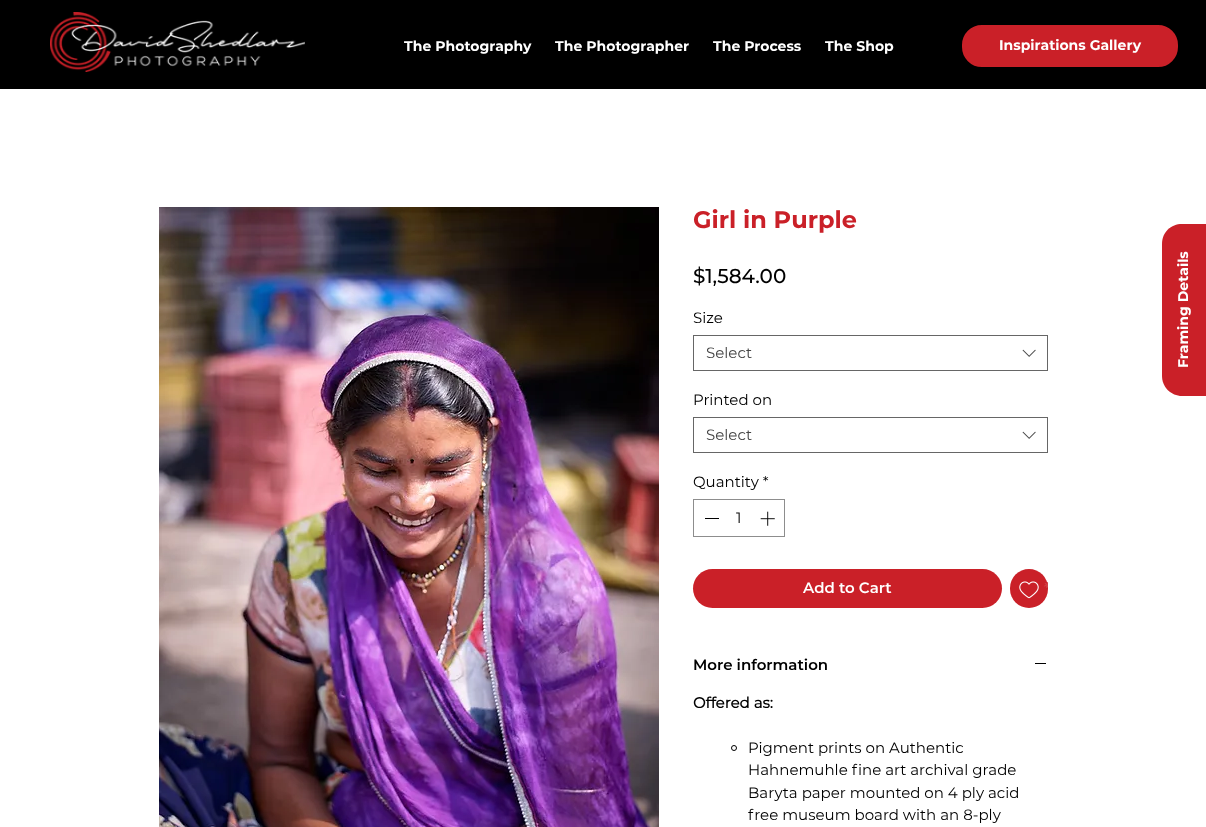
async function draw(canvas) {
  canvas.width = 1206
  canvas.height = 827
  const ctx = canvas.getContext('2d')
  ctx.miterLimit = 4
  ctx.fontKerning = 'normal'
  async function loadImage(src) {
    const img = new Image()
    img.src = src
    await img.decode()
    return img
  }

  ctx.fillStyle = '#fff'
  ctx.fillRect(0, 0, 1206, 827)
  ctx.fillStyle = '#000'
  ctx.fillRect(0, 0, 1206, 89)
  ctx.drawImage(await loadImage('image0.png'), 50, 12, 255, 60)
  ctx.font = 'bold 14px Montserrat'
  ctx.fillStyle = '#fff'
  ctx.fillText('The Photography', 404, 51)
  ctx.fillText('The Photographer', 555, 51)
  ctx.fillText('The Process', 713, 51)
  ctx.fillText('The Shop', 825, 51)
  ctx.fillStyle = '#ca2028'
  ctx.beginPath()
  ctx.roundRect(963, 26, 214, 40, 19)
  ctx.fill()
  ctx.strokeStyle = '#ca2028'
  ctx.lineWidth = 2
  ctx.stroke()
  ctx.fillStyle = '#fff'
  ctx.fillText('Inspirations Gallery', 999, 50)
  ctx.drawImage(await loadImage('image1.png'), 159, 207, 500, 620)
  ctx.font = 'bold 24px Montserrat'
  ctx.fillStyle = '#ca2028'
  ctx.fillText('Girl in Purple', 693, 228)
  ctx.font = '500 20px Montserrat'
  ctx.fillStyle = '#000'
  ctx.fillText('$1,584.00', 693, 283)
  ctx.font = '15px Montserrat'
  ctx.fillText('Size', 693, 323)
  ctx.strokeStyle = '#666'
  ctx.lineWidth = 1
  ctx.strokeRect(693.5, 335.5, 354, 35)
  ctx.fillStyle = '#444'
  ctx.fillText('Select', 706, 358)
  ctx.drawImage(await loadImage('image2.png'), 1022, 349, 14, 8)
  ctx.fillStyle = '#000'
  ctx.fillText('Printed on', 693, 405)
  ctx.strokeRect(693.5, 417.5, 354, 35)
  ctx.fillStyle = '#444'
  ctx.fillText('Select', 706, 440)
  ctx.drawImage(await loadImage('image2.png'), 1022, 431, 14, 8)
  ctx.fillStyle = '#000'
  ctx.fillText('Quantity *', 693, 487)
  ctx.strokeStyle = '#8d8d8d'
  ctx.strokeRect(693.5, 499.5, 91, 37)
  ctx.fillRect(705, 518, 14, 1)
  ctx.fillText('1', 736, 523)
  ctx.drawImage(await loadImage('image3.png'), 760, 511, 15, 15)
  ctx.fillStyle = '#ca2028'
  ctx.beginPath()
  ctx.roundRect(693, 569, 309, 39, 19.5)
  ctx.fill()
  ctx.font = '600 15px Montserrat'
  ctx.fillStyle = '#fff'
  ctx.fillText('Add to Cart', 803, 593)
  ctx.fillStyle = '#ca2028'
  ctx.beginPath()
  ctx.roundRect(1010, 569, 38, 39, 19)
  ctx.fill()
  ctx.drawImage(await loadImage('image4.png'), 1019, 581, 20, 18)
  ctx.save()
  ctx.beginPath()
  ctx.rect(1010, 573, 38, 32)
  ctx.clip()
  ctx.font = 'italic 600 15px Montserrat'
  ctx.fillStyle = '#d13d44'
  ctx.fillText('*', 1042, 593)
  ctx.restore()
  ctx.fillStyle = '#000'
  ctx.fillText('More information', 693, 670)
  ctx.fillRect(1035, 663, 11, 1)
  ctx.font = 'bold 15px "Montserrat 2"'
  ctx.fillText('Offered as:', 693, 708)
  ctx.beginPath()
  ctx.arc(734, 748, 2.5, 0, 2 * Math.PI)
  ctx.strokeStyle = '#000'
  ctx.stroke()
  ctx.font = '15px Montserrat'
  ctx.fillText('Pigment prints on Authentic', 748, 753)
  ctx.fillText('Hahnemuhle fine art archival grade', 748, 775)
  ctx.fillText('Baryta paper mounted on 4 ply acid', 748, 798)
  ctx.fillText('free museum board with an 8-ply', 748, 820)
  ctx.fillStyle = '#ca2028'
  ctx.beginPath()
  ctx.moveTo(1162, 376)
  ctx.lineTo(1162, 244)
  ctx.bezierCurveTo(1162, 232, 1171, 224, 1182, 224)
  ctx.lineTo(1206, 224)
  ctx.lineTo(1206, 396)
  ctx.lineTo(1182, 396)
  ctx.bezierCurveTo(1171, 396, 1162, 387, 1162, 376)
  ctx.closePath()
  ctx.fill()
  ctx.font = 'bold 14px Montserrat'
  ctx.fillStyle = '#fff'
  ctx.save()
  ctx.translate(1188, 368)
  ctx.rotate(-90 * Math.PI / 180)
  ctx.fillText('Framing Details', 0, 0)
  ctx.restore()
}

draw(document.querySelector('canvas'))
